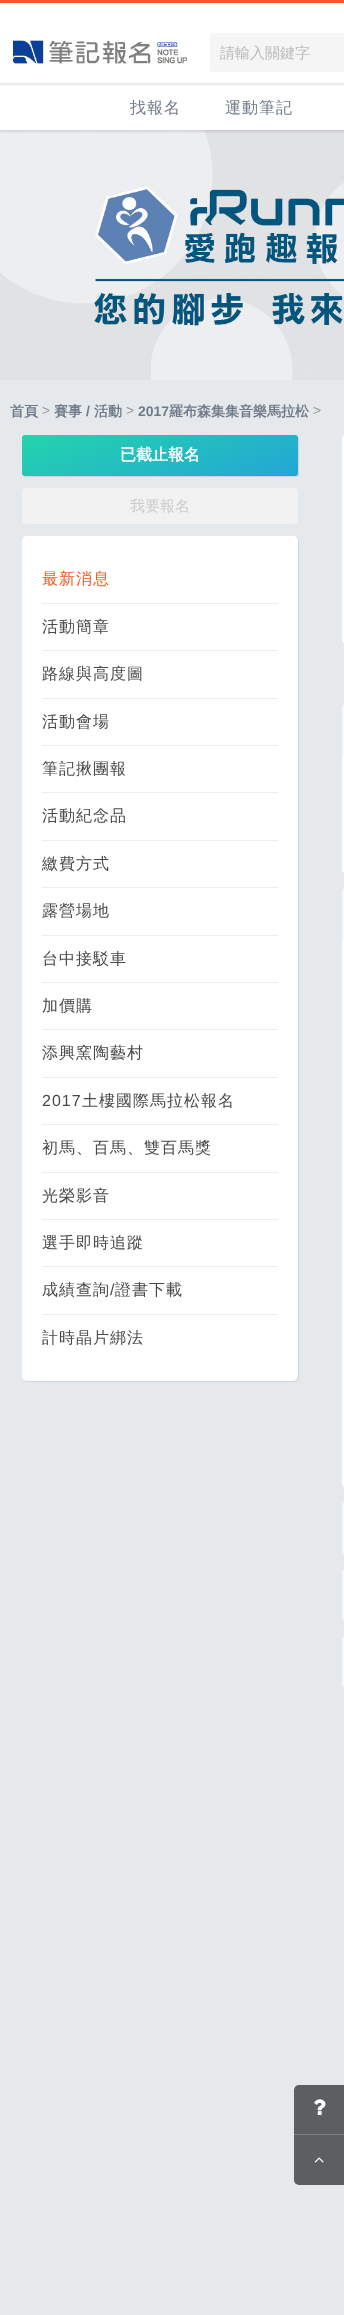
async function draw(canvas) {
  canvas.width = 344
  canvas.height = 2315
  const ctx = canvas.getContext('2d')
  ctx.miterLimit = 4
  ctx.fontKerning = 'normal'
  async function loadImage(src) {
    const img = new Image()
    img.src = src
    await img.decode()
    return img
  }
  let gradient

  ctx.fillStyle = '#e5e9ec'
  ctx.fillRect(0, 0, 344, 2315)
  ctx.drawImage(await loadImage('image1.png'), 0, 130, 344, 250)
  ctx.fillStyle = '#0000001a'
  ctx.filter = 'blur(1px)'
  ctx.beginPath()
  ctx.rect(0, 2, 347, 130)
  ctx.fill()
  ctx.filter = 'none'
  ctx.fillStyle = '#fff'
  ctx.fillRect(0, 3, 344, 127)
  ctx.fillStyle = '#f15a24'
  ctx.fillRect(0, 0, 344, 3)
  ctx.save()
  ctx.beginPath()
  ctx.rect(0, 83, 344, 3)
  ctx.clip()
  ctx.fillStyle = '#0000001a'
  ctx.filter = 'blur(1px)'
  ctx.beginPath()
  ctx.rect(0, 5, 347, 80)
  ctx.fill()
  ctx.filter = 'none'
  ctx.restore()
  ctx.drawImage(await loadImage('image0.png'), 13, 40, 174, 24)
  ctx.fillStyle = '#f5f5f5'
  ctx.beginPath()
  ctx.roundRect(210, 33, 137, 39, 3)
  ctx.fill()
  ctx.font = '500 15px WenQuanYi Zen Hei'
  ctx.fillStyle = '#bbb'
  ctx.fillText('請輸入關鍵字', 220, 58)
  ctx.letterSpacing = '1px'
  ctx.font = '500 16px WenQuanYi Zen Hei'
  ctx.fillStyle = '#6f7b8a'
  ctx.fillText('找報名', 130, 113)
  ctx.fillText('運動筆記', 225, 113)
  ctx.letterSpacing = '0px'
  ctx.font = 'bold 14px WenQuanYi Zen Hei'
  ctx.fillText('首頁', 10, 416)
  ctx.font = '14px Liberation Sans'
  ctx.fillStyle = '#95989a'
  ctx.fillText('>', 42, 415)
  ctx.font = 'bold 14px WenQuanYi Zen Hei'
  ctx.fillStyle = '#6f7b8a'
  ctx.fillText('賽事', 54, 416)
  ctx.font = 'bold 14px Liberation Sans'
  ctx.fillText('/', 86, 416)
  ctx.font = 'bold 14px WenQuanYi Zen Hei'
  ctx.fillText('活動', 94, 416)
  ctx.font = '14px Liberation Sans'
  ctx.fillStyle = '#95989a'
  ctx.fillText('>', 126, 415)
  ctx.font = 'bold 14px Liberation Sans'
  ctx.fillStyle = '#6f7b8a'
  ctx.fillText('2017', 138, 416)
  ctx.font = 'bold 14px WenQuanYi Zen Hei'
  ctx.fillText('羅布森集集音樂馬拉松', 169, 416)
  ctx.font = '14px Liberation Sans'
  ctx.fillStyle = '#95989a'
  ctx.fillText('>', 313, 415)
  ctx.fillStyle = '#22262e1a'
  ctx.filter = 'blur(0.5px)'
  ctx.beginPath()
  ctx.roundRect(23, 436, 276, 41, 3)
  ctx.fill()
  ctx.filter = 'none'
  gradient = ctx.createLinearGradient(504, 684, 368, 309)
  gradient.addColorStop(0, '#ee7752')
  gradient.addColorStop(0.33, '#e73c7e')
  gradient.addColorStop(0.67, '#23a6d5')
  gradient.addColorStop(1, '#23d5ab')
  ctx.fillStyle = gradient
  ctx.beginPath()
  ctx.roundRect(22, 435, 276, 41, 3)
  ctx.fill()
  ctx.font = 'bold 16px WenQuanYi Zen Hei'
  ctx.fillStyle = '#fff'
  ctx.fillText('已截止報名', 120, 460)
  ctx.fillStyle = '#f2f2f2'
  ctx.beginPath()
  ctx.roundRect(22.5, 488.5, 275, 35, 2.5)
  ctx.fill()
  ctx.strokeStyle = '#f2f2f2'
  ctx.stroke()
  ctx.font = '500 15px WenQuanYi Zen Hei'
  ctx.fillStyle = '#ccc'
  ctx.fillText('我要報名', 130, 511)
  ctx.fillStyle = '#22262e1a'
  ctx.filter = 'blur(0.5px)'
  ctx.beginPath()
  ctx.roundRect(23, 537, 276, 845, 5)
  ctx.fill()
  ctx.filter = 'none'
  ctx.fillStyle = '#fff'
  ctx.beginPath()
  ctx.roundRect(22, 536, 276, 845, 5)
  ctx.fill()
  ctx.letterSpacing = '1px'
  ctx.font = '500 16px WenQuanYi Zen Hei'
  ctx.fillStyle = '#f15a24'
  ctx.fillText('最新消息', 42, 584)
  ctx.fillStyle = '#eaecf1'
  ctx.fillRect(42, 603, 236, 1)
  ctx.fillStyle = '#4c4948'
  ctx.fillText('活動簡章', 42, 632)
  ctx.fillStyle = '#eaecf1'
  ctx.fillRect(42, 650, 236, 1)
  ctx.fillStyle = '#4c4948'
  ctx.fillText('路線與高度圖', 42, 679)
  ctx.fillStyle = '#eaecf1'
  ctx.fillRect(42, 698, 236, 1)
  ctx.fillStyle = '#4c4948'
  ctx.fillText('活動會場', 42, 727)
  ctx.fillStyle = '#eaecf1'
  ctx.fillRect(42, 745, 236, 1)
  ctx.fillStyle = '#4c4948'
  ctx.fillText('筆記揪團報', 42, 774)
  ctx.fillStyle = '#eaecf1'
  ctx.fillRect(42, 792, 236, 1)
  ctx.fillStyle = '#4c4948'
  ctx.fillText('活動紀念品', 42, 821)
  ctx.fillStyle = '#eaecf1'
  ctx.fillRect(42, 840, 236, 1)
  ctx.fillStyle = '#4c4948'
  ctx.fillText('繳費方式', 42, 869)
  ctx.fillStyle = '#eaecf1'
  ctx.fillRect(42, 887, 236, 1)
  ctx.fillStyle = '#4c4948'
  ctx.fillText('露營場地', 42, 916)
  ctx.fillStyle = '#eaecf1'
  ctx.fillRect(42, 935, 236, 1)
  ctx.fillStyle = '#4c4948'
  ctx.fillText('台中接駁車', 42, 964)
  ctx.fillStyle = '#eaecf1'
  ctx.fillRect(42, 982, 236, 1)
  ctx.fillStyle = '#4c4948'
  ctx.fillText('加價購', 42, 1011)
  ctx.fillStyle = '#eaecf1'
  ctx.fillRect(42, 1029, 236, 1)
  ctx.fillStyle = '#4c4948'
  ctx.fillText('添興窯陶藝村', 42, 1058)
  ctx.fillStyle = '#eaecf1'
  ctx.fillRect(42, 1077, 236, 1)
  ctx.font = '16px Liberation Sans'
  ctx.fillStyle = '#4c4948'
  ctx.fillText('2017', 42, 1106)
  ctx.font = '500 16px WenQuanYi Zen Hei'
  ctx.fillText('土樓國際馬拉松報名', 82, 1106)
  ctx.fillStyle = '#eaecf1'
  ctx.fillRect(42, 1124, 236, 1)
  ctx.fillStyle = '#4c4948'
  ctx.fillText('初馬、百馬、雙百馬獎', 42, 1153)
  ctx.fillStyle = '#eaecf1'
  ctx.fillRect(42, 1172, 236, 1)
  ctx.fillStyle = '#4c4948'
  ctx.fillText('光榮影音', 42, 1201)
  ctx.fillStyle = '#eaecf1'
  ctx.fillRect(42, 1219, 236, 1)
  ctx.fillStyle = '#4c4948'
  ctx.fillText('選手即時追蹤', 42, 1248)
  ctx.fillStyle = '#eaecf1'
  ctx.fillRect(42, 1266, 236, 1)
  ctx.fillStyle = '#4c4948'
  ctx.fillText('成績查詢', 42, 1295)
  ctx.font = '16px Liberation Sans'
  ctx.fillText('/', 110, 1295)
  ctx.font = '500 16px WenQuanYi Zen Hei'
  ctx.fillText('證書下載', 115, 1295)
  ctx.fillStyle = '#eaecf1'
  ctx.fillRect(42, 1314, 236, 1)
  ctx.fillStyle = '#4c4948'
  ctx.fillText('計時晶片綁法', 42, 1343)
  ctx.fillStyle = '#fff'
  ctx.beginPath()
  ctx.roundRect(342, 435, 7, 208, 5)
  ctx.fill()
  ctx.beginPath()
  ctx.roundRect(342, 704, 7, 169, 5)
  ctx.fill()
  ctx.fillStyle = '#f7f7f7'
  ctx.beginPath()
  ctx.moveTo(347, 704)
  ctx.lineTo(344, 704)
  ctx.bezierCurveTo(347, 704, 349, 706, 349, 709)
  ctx.lineTo(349, 756)
  ctx.lineTo(342, 756)
  ctx.lineTo(342, 709)
  ctx.bezierCurveTo(342, 706, 344, 704, 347, 704)
  ctx.closePath()
  ctx.fill()
  ctx.fillStyle = '#fff'
  ctx.beginPath()
  ctx.roundRect(342, 888, 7, 599, 5)
  ctx.fill()
  ctx.fillStyle = '#f7f7f7'
  ctx.beginPath()
  ctx.moveTo(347, 888)
  ctx.lineTo(344, 888)
  ctx.bezierCurveTo(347, 888, 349, 890, 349, 893)
  ctx.lineTo(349, 939)
  ctx.lineTo(342, 939)
  ctx.lineTo(342, 893)
  ctx.bezierCurveTo(342, 890, 344, 888, 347, 888)
  ctx.closePath()
  ctx.fill()
  ctx.beginPath()
  ctx.roundRect(342, 1502, 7, 52, 5)
  ctx.fill()
  ctx.beginPath()
  ctx.roundRect(342, 1569, 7, 52, 5)
  ctx.fill()
  ctx.beginPath()
  ctx.roundRect(342, 1636, 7, 51, 5)
  ctx.fill()
  ctx.fillStyle = '#5d5e5f'
  ctx.beginPath()
  ctx.roundRect(294, 2085, 50, 100, [5, 0, 0, 5])
  ctx.fill()
  ctx.fillStyle = '#7d7e7f'
  ctx.fillRect(294, 2134, 50, 1)
  ctx.drawImage(await loadImage('image2.png'), 314, 2099, 12, 16)
  ctx.drawImage(await loadImage('image3.png'), 314, 2157, 10, 6)
}

draw(document.querySelector('canvas'))
